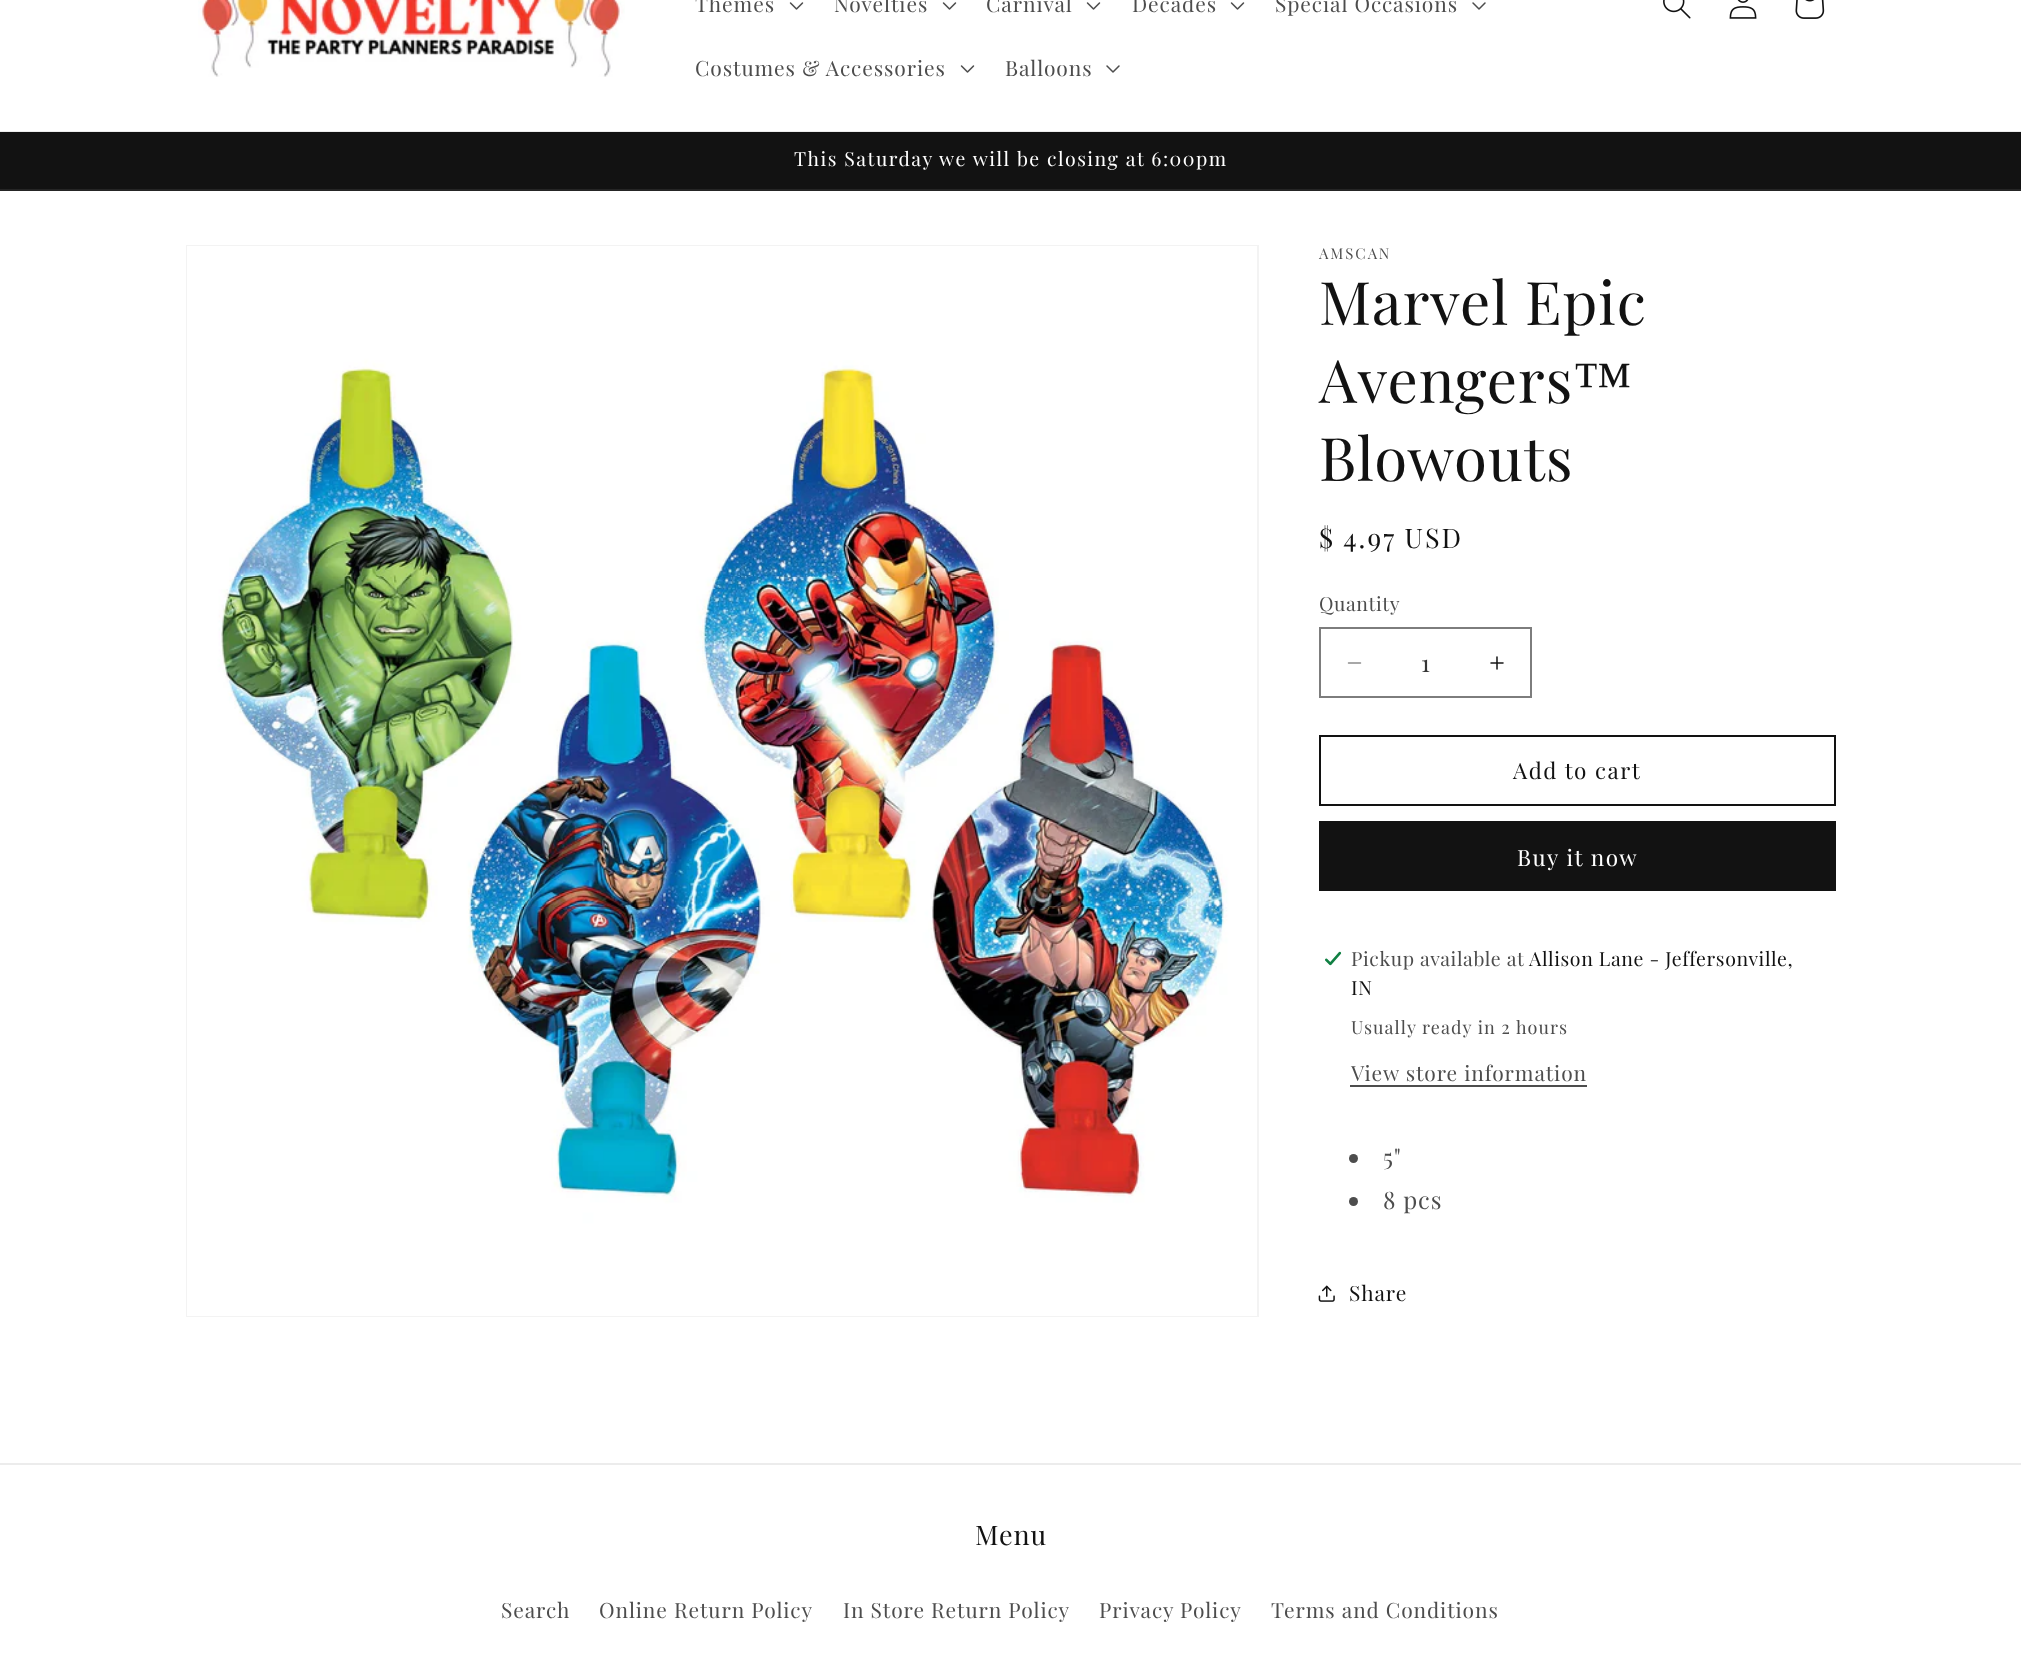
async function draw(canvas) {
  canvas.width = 2021
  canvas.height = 1655
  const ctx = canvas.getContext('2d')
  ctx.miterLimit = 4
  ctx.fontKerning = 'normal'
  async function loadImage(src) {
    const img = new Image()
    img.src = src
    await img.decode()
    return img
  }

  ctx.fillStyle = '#fff'
  ctx.fillRect(0, 0, 2021, 1655)
  ctx.fillStyle = '#ececec'
  ctx.fillRect(0, 131, 2021, 1)
  ctx.drawImage(await loadImage('image0.png'), 198, 0, 427, 77)
  ctx.letterSpacing = '0.9px'
  ctx.font = '21px Playfair Display'
  ctx.fillStyle = '#4d4d4d'
  ctx.fillText('Themes', 695, 12)
  ctx.drawImage(await loadImage('image1.png'), 789, 2, 15, 8)
  ctx.fillText('Novelties', 834, 12)
  ctx.drawImage(await loadImage('image1.png'), 942, 2, 15, 8)
  ctx.fillText('Carnival', 986, 12)
  ctx.drawImage(await loadImage('image1.png'), 1086, 2, 15, 8)
  ctx.fillText('Decades', 1132, 12)
  ctx.drawImage(await loadImage('image1.png'), 1230, 2, 15, 8)
  ctx.fillText('Special Occasions', 1275, 12)
  ctx.drawImage(await loadImage('image2.png'), 1472, 2, 14, 8)
  ctx.fillText('Costumes & Accessories', 695, 76)
  ctx.drawImage(await loadImage('image1.png'), 960, 65, 15, 8)
  ctx.fillText('Balloons', 1005, 76)
  ctx.drawImage(await loadImage('image2.png'), 1106, 65, 14, 8)
  ctx.drawImage(await loadImage('image3.png'), 1663, 0, 28, 19)
  ctx.drawImage(await loadImage('image4.png'), 1729, 0, 28, 19)
  ctx.drawImage(await loadImage('image5.png'), 1795, 0, 30, 19)
  ctx.fillStyle = '#121212'
  ctx.fillRect(0, 132, 2021, 57)
  ctx.fillStyle = '#252525'
  ctx.fillRect(0, 189, 2021, 2)
  ctx.letterSpacing = '1.5px'
  ctx.font = '19.5px Playfair Display'
  ctx.fillStyle = '#fff'
  ctx.fillText('This Saturday we will be closing at 6:00pm', 794, 166)
  ctx.strokeStyle = '#f3f3f3'
  ctx.lineWidth = 2
  ctx.strokeRect(187, 246, 1071, 1070)
  ctx.drawImage(await loadImage('image6.png'), 187, 246, 1070, 1070)
  ctx.letterSpacing = '2px'
  ctx.font = '15px Playfair Display'
  ctx.fillStyle = '#4d4d4d'
  ctx.fillText('AMSCAN', 1319, 259)
  ctx.letterSpacing = '0.9px'
  ctx.font = '60px Playfair Display'
  ctx.fillStyle = '#121212'
  ctx.fillText('Marvel Epic', 1319, 325)
  ctx.fillText('Avengers', 1319, 403)
  ctx.font = '60px Liberation Serif'
  ctx.fillText('™', 1573, 403)
  ctx.font = '60px Playfair Display'
  ctx.fillText('Blowouts', 1319, 481)
  ctx.letterSpacing = '2px'
  ctx.font = '27px Playfair Display'
  ctx.fillText('$ 4.97 USD', 1319, 548)
  ctx.letterSpacing = '0.6px'
  ctx.font = '19.5px Playfair Display'
  ctx.fillStyle = '#4d4d4d'
  ctx.fillText('Quantity', 1319, 611)
  ctx.drawImage(await loadImage('image7.png'), 1347, 662, 15, 2)
  ctx.drawImage(await loadImage('image8.png'), 1490, 656, 14, 14)
  ctx.strokeStyle = '#7d7d7d'
  ctx.strokeRect(1320, 628, 211, 69)
  ctx.letterSpacing = '0px'
  ctx.font = '24px Playfair Display'
  ctx.fillStyle = '#363636'
  ctx.fillText('1', 1421, 672)
  ctx.strokeStyle = '#121212'
  ctx.strokeRect(1320, 736, 515, 69)
  ctx.letterSpacing = '1.5px'
  ctx.font = '22.5px Playfair Display'
  ctx.fillStyle = '#121212'
  ctx.fillText('Add to cart', 1513, 779)
  ctx.fillRect(1319, 821, 517, 70)
  ctx.fillStyle = '#fff'
  ctx.fillText('Buy it now', 1517, 866)
  ctx.drawImage(await loadImage('image9.png'), 1325, 951, 17, 15)
  ctx.letterSpacing = '0.6px'
  ctx.font = '19.5px Playfair Display'
  ctx.fillStyle = '#4d4d4d'
  ctx.fillText('Pickup available at', 1351, 966)
  ctx.fillStyle = '#121212'
  ctx.fillText('Allison Lane - Jeffersonville,', 1529, 966)
  ctx.fillText('IN', 1351, 995)
  ctx.letterSpacing = '1.05px'
  ctx.font = '18px Playfair Display'
  ctx.fillStyle = '#4d4d4d'
  ctx.fillText('Usually ready in 2 hours', 1351, 1034)
  ctx.letterSpacing = '0.9px'
  ctx.font = '21px Playfair Display'
  ctx.fillText('View store information', 1351, 1081)
  ctx.fillRect(1350, 1085, 237, 2)
  ctx.beginPath()
  ctx.arc(1353.5, 1158.5, 4.5, 0, 2 * Math.PI)
  ctx.fill()
  ctx.font = '24px Playfair Display'
  ctx.fillText('5"', 1383, 1166)
  ctx.beginPath()
  ctx.arc(1353.5, 1201.5, 4.5, 0, 2 * Math.PI)
  ctx.fill()
  ctx.fillText('8 pcs', 1383, 1209)
  ctx.drawImage(await loadImage('image10.png'), 1318, 1285, 17, 17)
  ctx.font = '21px Playfair Display'
  ctx.fillStyle = '#121212'
  ctx.fillText('Share', 1349, 1301)
  ctx.fillStyle = '#ececec'
  ctx.fillRect(0, 1463, 2021, 2)
  ctx.font = '27px Playfair Display'
  ctx.fillStyle = '#121212'
  ctx.fillText('Menu', 975, 1545)
  ctx.font = '21px Playfair Display'
  ctx.fillStyle = '#4d4d4d'
  ctx.fillText('Search', 501, 1618)
  ctx.fillText('Online Return Policy', 599, 1618)
  ctx.fillText('In Store Return Policy', 843, 1618)
  ctx.fillText('Privacy Policy', 1099, 1618)
  ctx.fillText('Terms and Conditions', 1271, 1618)
}

draw(document.querySelector('canvas'))
